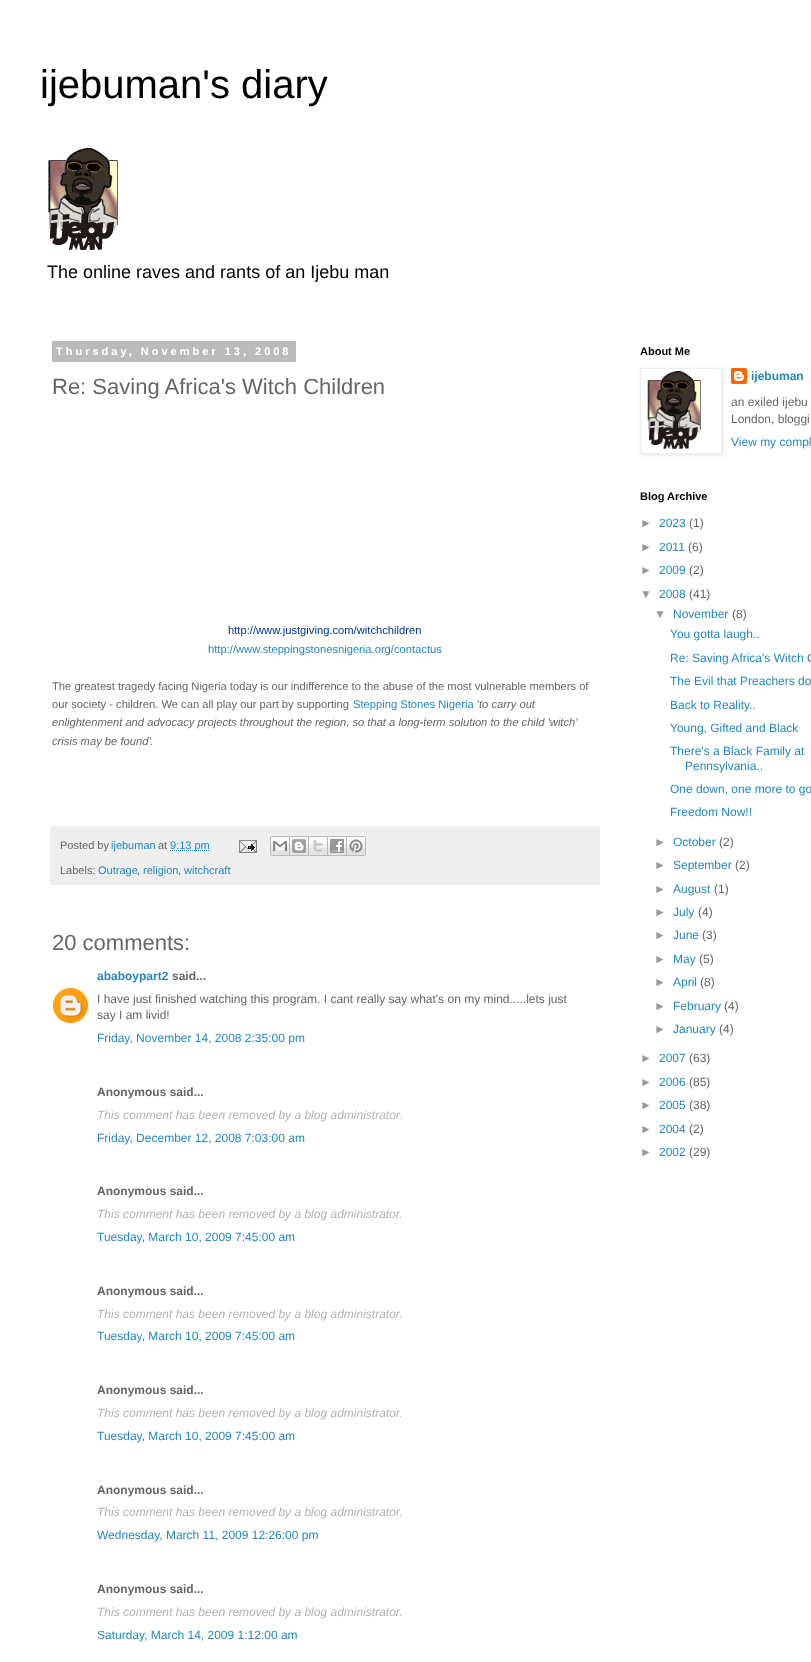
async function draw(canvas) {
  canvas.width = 811
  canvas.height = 1662
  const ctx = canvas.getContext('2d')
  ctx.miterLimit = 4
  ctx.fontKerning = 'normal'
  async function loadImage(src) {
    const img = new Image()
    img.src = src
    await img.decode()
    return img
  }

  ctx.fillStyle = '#fff'
  ctx.fillRect(0, 0, 811, 1662)
  ctx.font = '40px Liberation Sans'
  ctx.fillStyle = '#000'
  ctx.fillText('ijebuman\'s diary', 40, 98)
  ctx.drawImage(await loadImage('image0.png'), 48, 148, 70, 102)
  ctx.font = '18px Liberation Sans'
  ctx.fillText('The online raves and rants of an Ijebu man', 47, 278)
  ctx.fillStyle = '#bbb'
  ctx.fillRect(52, 341, 244, 21)
  ctx.letterSpacing = '3px'
  ctx.font = 'bold 11px Liberation Sans'
  ctx.fillStyle = '#fff'
  ctx.fillText('Thursday, November 13, 2008', 56, 355)
  ctx.letterSpacing = '0px'
  ctx.font = '22px Liberation Sans'
  ctx.fillStyle = '#666'
  ctx.fillText('Re: Saving Africa\'s Witch Children', 52, 394)
  ctx.font = '11.2px Liberation Sans'
  ctx.fillStyle = '#039'
  ctx.fillText('http://www.justgiving.com/witchchildren', 228, 634)
  ctx.fillStyle = '#28b'
  ctx.fillText('http://www.steppingstonesnigeria.org/contactus', 208, 653)
  ctx.fillStyle = '#666'
  ctx.fillText('The greatest tragedy facing Nigeria today is our indifference to the abuse of the most vulnerable members of', 52, 690)
  ctx.fillText('our society - children. We can all play our part by supporting', 52, 708)
  ctx.fillStyle = '#28b'
  ctx.fillText('Stepping Stones Nigeria', 353, 708)
  ctx.fillStyle = '#666'
  ctx.fillText('\'', 477, 708)
  ctx.font = 'italic 11.2px Liberation Sans'
  ctx.fillText('to carry out', 479, 708)
  ctx.fillText('enlightenment and advocacy projects throughout the region, so that a long-term solution to the child \'witch\'', 52, 726)
  ctx.fillText('crisis may be found\'.', 52, 745)
  ctx.fillStyle = '#eee'
  ctx.fillRect(50, 826, 550, 59)
  ctx.font = '11px Liberation Sans'
  ctx.fillStyle = '#666'
  ctx.fillText('Posted by', 60, 849)
  ctx.fillStyle = '#28b'
  ctx.fillText('ijebuman', 111, 849)
  ctx.fillStyle = '#666'
  ctx.fillText('at', 158, 849)
  ctx.beginPath()
  ctx.moveTo(170, 850.5)
  ctx.lineTo(209, 850.5)
  ctx.strokeStyle = '#28b'
  ctx.setLineDash([1, 1])
  ctx.stroke()
  ctx.fillStyle = '#28b'
  ctx.fillText('9:13 pm', 170, 849)
  ctx.drawImage(await loadImage('image1.png'), 239, 840, 18, 13)
  ctx.drawImage(await loadImage('image2.png'), 270, 836, 20, 20)
  ctx.drawImage(await loadImage('image3.png'), 290, 836, 19, 20)
  ctx.drawImage(await loadImage('image4.png'), 309, 836, 19, 20)
  ctx.drawImage(await loadImage('image5.png'), 328, 836, 19, 20)
  ctx.drawImage(await loadImage('image6.png'), 347, 836, 19, 20)
  ctx.fillStyle = '#666'
  ctx.fillText('Labels:', 60, 874)
  ctx.fillStyle = '#28b'
  ctx.fillText('Outrage', 98, 874)
  ctx.fillStyle = '#666'
  ctx.fillText(',', 137, 874)
  ctx.fillStyle = '#28b'
  ctx.fillText('religion', 143, 874)
  ctx.fillStyle = '#666'
  ctx.fillText(',', 178, 874)
  ctx.fillStyle = '#28b'
  ctx.fillText('witchcraft', 184, 874)
  ctx.font = '22px Liberation Sans'
  ctx.fillStyle = '#666'
  ctx.fillText('20 comments:', 52, 950)
  ctx.font = 'bold 12px Liberation Sans'
  ctx.fillStyle = '#28b'
  ctx.fillText('ababoypart2', 97, 980)
  ctx.fillStyle = '#666'
  ctx.fillText('said...', 172, 980)
  ctx.drawImage(await loadImage('image7.png'), 53, 988, 35, 35)
  ctx.font = '12px Liberation Sans'
  ctx.fillText('I have just finished watching this program. I cant really say what\'s on my mind.....lets just', 97, 1003)
  ctx.fillText('say I am livid!', 97, 1019)
  ctx.fillStyle = '#28b'
  ctx.fillText('Friday, November 14, 2008 2:35:00 pm', 97, 1042)
  ctx.font = 'bold 12px Liberation Sans'
  ctx.fillStyle = '#666'
  ctx.fillText('Anonymous said...', 97, 1096)
  ctx.font = 'italic 12px Liberation Sans'
  ctx.fillStyle = '#b3b3b3'
  ctx.fillText('This comment has been removed by a blog administrator.', 97, 1119)
  ctx.font = '12px Liberation Sans'
  ctx.fillStyle = '#28b'
  ctx.fillText('Friday, December 12, 2008 7:03:00 am', 97, 1142)
  ctx.font = 'bold 12px Liberation Sans'
  ctx.fillStyle = '#666'
  ctx.fillText('Anonymous said...', 97, 1195)
  ctx.font = 'italic 12px Liberation Sans'
  ctx.fillStyle = '#b3b3b3'
  ctx.fillText('This comment has been removed by a blog administrator.', 97, 1218)
  ctx.font = '12px Liberation Sans'
  ctx.fillStyle = '#28b'
  ctx.fillText('Tuesday, March 10, 2009 7:45:00 am', 97, 1241)
  ctx.font = 'bold 12px Liberation Sans'
  ctx.fillStyle = '#666'
  ctx.fillText('Anonymous said...', 97, 1295)
  ctx.font = 'italic 12px Liberation Sans'
  ctx.fillStyle = '#b3b3b3'
  ctx.fillText('This comment has been removed by a blog administrator.', 97, 1318)
  ctx.font = '12px Liberation Sans'
  ctx.fillStyle = '#28b'
  ctx.fillText('Tuesday, March 10, 2009 7:45:00 am', 97, 1340)
  ctx.font = 'bold 12px Liberation Sans'
  ctx.fillStyle = '#666'
  ctx.fillText('Anonymous said...', 97, 1394)
  ctx.font = 'italic 12px Liberation Sans'
  ctx.fillStyle = '#b3b3b3'
  ctx.fillText('This comment has been removed by a blog administrator.', 97, 1417)
  ctx.font = '12px Liberation Sans'
  ctx.fillStyle = '#28b'
  ctx.fillText('Tuesday, March 10, 2009 7:45:00 am', 97, 1440)
  ctx.font = 'bold 12px Liberation Sans'
  ctx.fillStyle = '#666'
  ctx.fillText('Anonymous said...', 97, 1494)
  ctx.font = 'italic 12px Liberation Sans'
  ctx.fillStyle = '#b3b3b3'
  ctx.fillText('This comment has been removed by a blog administrator.', 97, 1516)
  ctx.font = '12px Liberation Sans'
  ctx.fillStyle = '#28b'
  ctx.fillText('Wednesday, March 11, 2009 12:26:00 pm', 97, 1539)
  ctx.font = 'bold 12px Liberation Sans'
  ctx.fillStyle = '#666'
  ctx.fillText('Anonymous said...', 97, 1593)
  ctx.font = 'italic 12px Liberation Sans'
  ctx.fillStyle = '#b3b3b3'
  ctx.fillText('This comment has been removed by a blog administrator.', 97, 1616)
  ctx.font = '12px Liberation Sans'
  ctx.fillStyle = '#28b'
  ctx.fillText('Saturday, March 14, 2009 1:12:00 am', 97, 1639)
  ctx.font = 'bold 11px Liberation Sans'
  ctx.fillStyle = '#000'
  ctx.fillText('About Me', 640, 355)
  ctx.drawImage(await loadImage('image9.png'), 731, 368, 16, 16)
  ctx.save()
  ctx.beginPath()
  ctx.moveTo(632, 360)
  ctx.lineTo(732, 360)
  ctx.lineTo(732, 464)
  ctx.lineTo(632, 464)
  ctx.closePath()
  ctx.moveTo(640, 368)
  ctx.lineTo(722, 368)
  ctx.lineTo(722, 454)
  ctx.lineTo(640, 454)
  ctx.closePath()
  ctx.clip('evenodd')
  ctx.fillStyle = '#0000001a'
  ctx.filter = 'blur(2.5px)'
  ctx.beginPath()
  ctx.rect(641, 369, 82, 86)
  ctx.fill()
  ctx.filter = 'none'
  ctx.restore()
  ctx.strokeStyle = '#eee'
  ctx.setLineDash([])
  ctx.strokeRect(640.5, 368.5, 81, 85)
  ctx.drawImage(await loadImage('image8.png'), 647, 371, 54, 78)
  ctx.font = 'bold 12px Liberation Sans'
  ctx.fillStyle = '#28b'
  ctx.fillText('ijebuman', 751, 380)
  ctx.font = '12px Liberation Sans'
  ctx.fillStyle = '#666'
  ctx.fillText('an exiled ijebu', 731, 406)
  ctx.fillText('London, bloggi', 731, 423)
  ctx.fillStyle = '#28b'
  ctx.fillText('View my compl', 731, 446)
  ctx.font = 'bold 11px Liberation Sans'
  ctx.fillStyle = '#000'
  ctx.fillText('Blog Archive', 640, 500)
  ctx.font = '12px Liberation Sans'
  ctx.fillStyle = '#999'
  ctx.fillText('►', 640, 527)
  ctx.fillStyle = '#28b'
  ctx.fillText('2023', 659, 527)
  ctx.fillStyle = '#666'
  ctx.fillText('(1)', 689, 527)
  ctx.fillStyle = '#999'
  ctx.fillText('►', 640, 551)
  ctx.fillStyle = '#28b'
  ctx.fillText('2011', 659, 551)
  ctx.fillStyle = '#666'
  ctx.fillText('(6)', 688, 551)
  ctx.fillStyle = '#999'
  ctx.fillText('►', 640, 574)
  ctx.fillStyle = '#28b'
  ctx.fillText('2009', 659, 574)
  ctx.fillStyle = '#666'
  ctx.fillText('(2)', 689, 574)
  ctx.fillStyle = '#999'
  ctx.fillText('▼', 640, 598)
  ctx.fillStyle = '#28b'
  ctx.fillText('2008', 659, 598)
  ctx.fillStyle = '#666'
  ctx.fillText('(41)', 689, 598)
  ctx.fillStyle = '#999'
  ctx.fillText('▼', 654, 618)
  ctx.fillStyle = '#28b'
  ctx.fillText('November', 673, 618)
  ctx.fillStyle = '#666'
  ctx.fillText('(8)', 732, 618)
  ctx.fillStyle = '#28b'
  ctx.fillText('You gotta laugh..', 670, 638)
  ctx.fillText('Re: Saving Africa\'s Witch C', 670, 662)
  ctx.fillText('The Evil that Preachers do', 670, 685)
  ctx.fillText('Back to Reality..', 670, 709)
  ctx.fillText('Young, Gifted and Black', 670, 732)
  ctx.fillText('There\'s a Black Family at', 670, 755)
  ctx.fillText('Pennsylvania..', 685, 770)
  ctx.fillText('One down, one more to go', 670, 793)
  ctx.fillText('Freedom Now!!', 670, 816)
  ctx.fillStyle = '#999'
  ctx.fillText('►', 654, 846)
  ctx.fillStyle = '#28b'
  ctx.fillText('October', 673, 846)
  ctx.fillStyle = '#666'
  ctx.fillText('(2)', 719, 846)
  ctx.fillStyle = '#999'
  ctx.fillText('►', 654, 869)
  ctx.fillStyle = '#28b'
  ctx.fillText('September', 673, 869)
  ctx.fillStyle = '#666'
  ctx.fillText('(2)', 735, 869)
  ctx.fillStyle = '#999'
  ctx.fillText('►', 654, 893)
  ctx.fillStyle = '#28b'
  ctx.fillText('August', 673, 893)
  ctx.fillStyle = '#666'
  ctx.fillText('(1)', 714, 893)
  ctx.fillStyle = '#999'
  ctx.fillText('►', 654, 916)
  ctx.fillStyle = '#28b'
  ctx.fillText('July', 673, 916)
  ctx.fillStyle = '#666'
  ctx.fillText('(4)', 698, 916)
  ctx.fillStyle = '#999'
  ctx.fillText('►', 654, 939)
  ctx.fillStyle = '#28b'
  ctx.fillText('June', 673, 939)
  ctx.fillStyle = '#666'
  ctx.fillText('(3)', 702, 939)
  ctx.fillStyle = '#999'
  ctx.fillText('►', 654, 963)
  ctx.fillStyle = '#28b'
  ctx.fillText('May', 673, 963)
  ctx.fillStyle = '#666'
  ctx.fillText('(5)', 699, 963)
  ctx.fillStyle = '#999'
  ctx.fillText('►', 654, 986)
  ctx.fillStyle = '#28b'
  ctx.fillText('April', 673, 986)
  ctx.fillStyle = '#666'
  ctx.fillText('(8)', 700, 986)
  ctx.fillStyle = '#999'
  ctx.fillText('►', 654, 1010)
  ctx.fillStyle = '#28b'
  ctx.fillText('February', 673, 1010)
  ctx.fillStyle = '#666'
  ctx.fillText('(4)', 724, 1010)
  ctx.fillStyle = '#999'
  ctx.fillText('►', 654, 1033)
  ctx.fillStyle = '#28b'
  ctx.fillText('January', 673, 1033)
  ctx.fillStyle = '#666'
  ctx.fillText('(4)', 719, 1033)
  ctx.fillStyle = '#999'
  ctx.fillText('►', 640, 1062)
  ctx.fillStyle = '#28b'
  ctx.fillText('2007', 659, 1062)
  ctx.fillStyle = '#666'
  ctx.fillText('(63)', 689, 1062)
  ctx.fillStyle = '#999'
  ctx.fillText('►', 640, 1086)
  ctx.fillStyle = '#28b'
  ctx.fillText('2006', 659, 1086)
  ctx.fillStyle = '#666'
  ctx.fillText('(85)', 689, 1086)
  ctx.fillStyle = '#999'
  ctx.fillText('►', 640, 1109)
  ctx.fillStyle = '#28b'
  ctx.fillText('2005', 659, 1109)
  ctx.fillStyle = '#666'
  ctx.fillText('(38)', 689, 1109)
  ctx.fillStyle = '#999'
  ctx.fillText('►', 640, 1133)
  ctx.fillStyle = '#28b'
  ctx.fillText('2004', 659, 1133)
  ctx.fillStyle = '#666'
  ctx.fillText('(2)', 689, 1133)
  ctx.fillStyle = '#999'
  ctx.fillText('►', 640, 1156)
  ctx.fillStyle = '#28b'
  ctx.fillText('2002', 659, 1156)
  ctx.fillStyle = '#666'
  ctx.fillText('(29)', 689, 1156)
}

draw(document.querySelector('canvas'))
